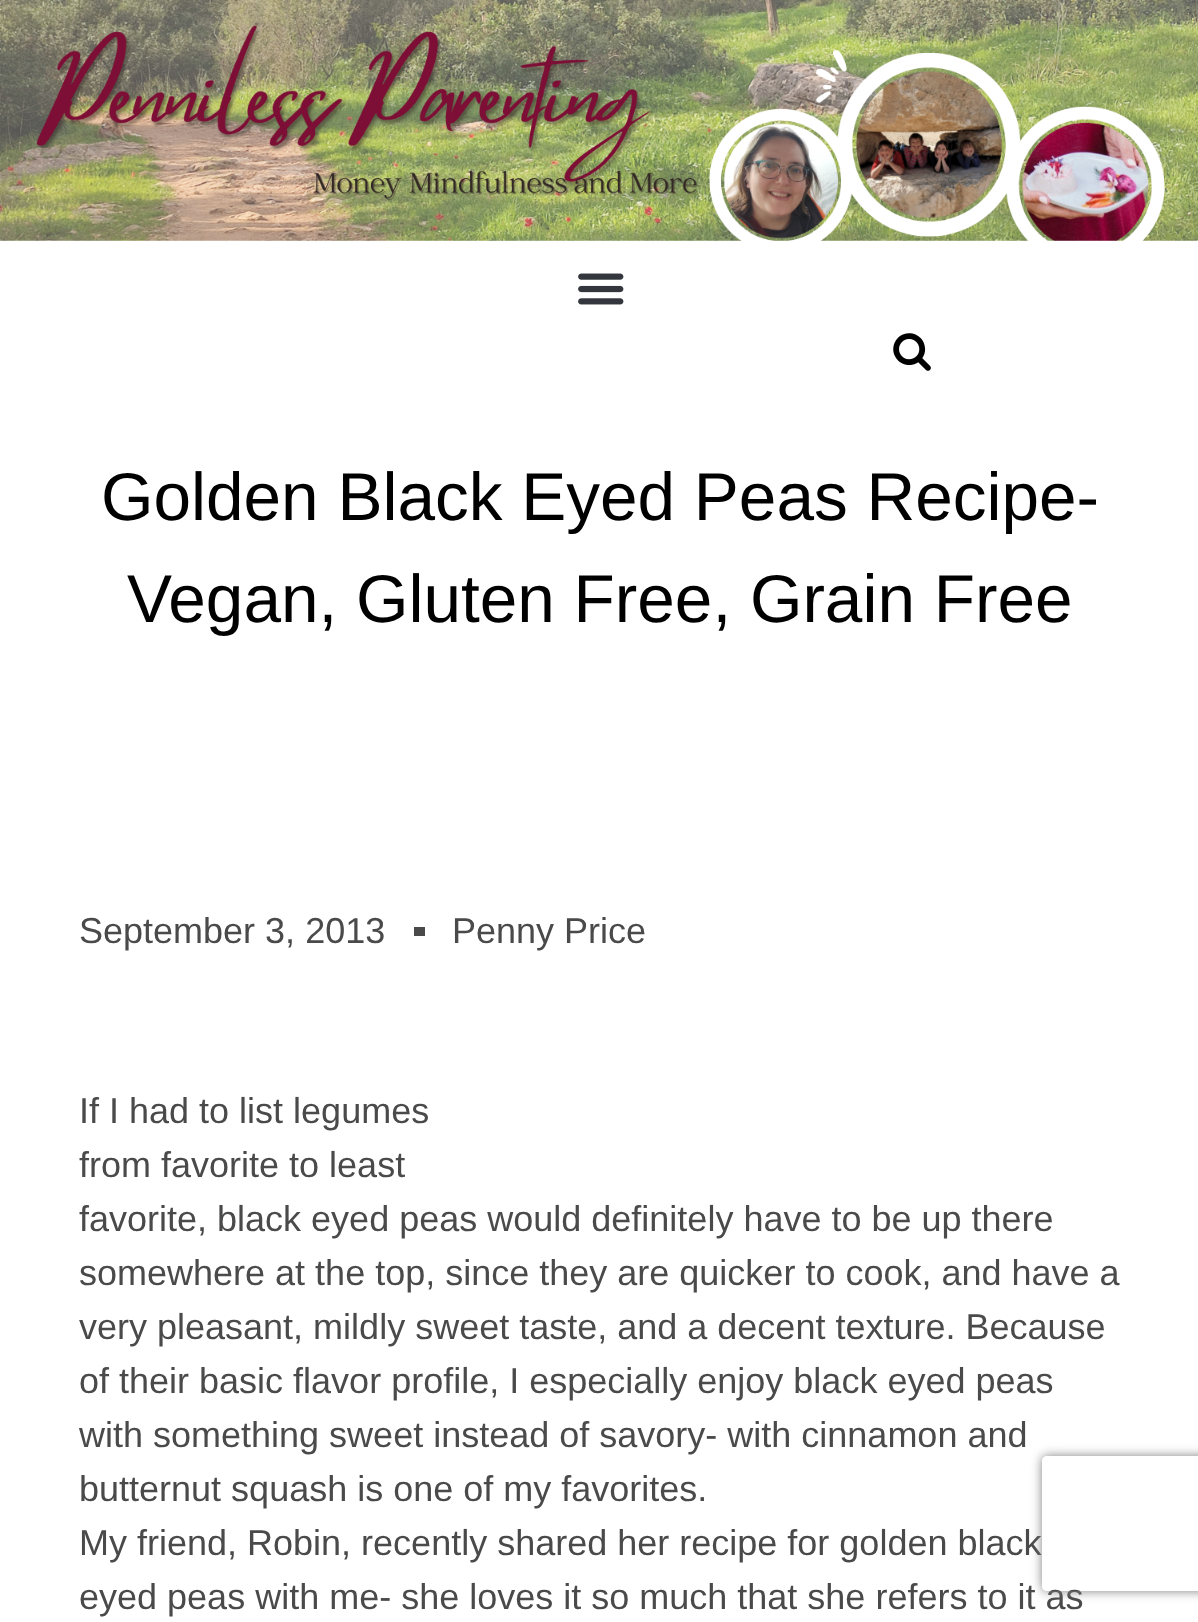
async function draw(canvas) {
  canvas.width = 1198
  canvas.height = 1622
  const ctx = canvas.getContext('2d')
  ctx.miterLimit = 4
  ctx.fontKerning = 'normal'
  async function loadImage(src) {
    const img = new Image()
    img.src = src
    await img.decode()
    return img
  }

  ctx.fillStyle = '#fff'
  ctx.fillRect(0, 0, 1198, 1622)
  ctx.drawImage(await loadImage('image0.png'), 0, 0, 1198, 241)
  ctx.drawImage(await loadImage('image1.png'), 578, 273, 46, 32)
  ctx.drawImage(await loadImage('image2.png'), 893, 333, 38, 38)
  ctx.font = '67.5px Liberation Sans'
  ctx.fillStyle = '#000'
  ctx.fillText('Golden Black Eyed Peas Recipe-', 101, 520)
  ctx.fillText('Vegan, Gluten Free, Grain Free', 127, 622)
  ctx.font = '36px Liberation Sans'
  ctx.fillStyle = '#4a4a4a'
  ctx.fillText('September 3, 2013', 79, 943)
  ctx.fillRect(414, 927, 11, 9)
  ctx.fillText('Penny Price', 452, 943)
  ctx.fillText('If I had to list legumes', 79, 1123)
  ctx.fillText('from favorite to least', 79, 1177)
  ctx.fillText('favorite, black eyed peas would definitely have to be up there', 79, 1231)
  ctx.fillText('somewhere at the top, since they are quicker to cook, and have a', 79, 1285)
  ctx.fillText('very pleasant, mildly sweet taste, and a decent texture. Because', 79, 1339)
  ctx.fillText('of their basic flavor profile, I especially enjoy black eyed peas', 79, 1393)
  ctx.fillText('with something sweet instead of savory- with cinnamon and', 79, 1447)
  ctx.fillText('butternut squash is one of my favorites.', 79, 1501)
  ctx.fillText('My friend, Robin, recently shared her recipe for golden black', 79, 1555)
  ctx.fillText('eyed peas with me- she loves it so much that she refers to it as', 79, 1609)
  ctx.save()
  ctx.beginPath()
  ctx.moveTo(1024, 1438)
  ctx.lineTo(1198, 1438)
  ctx.lineTo(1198, 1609)
  ctx.lineTo(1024, 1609)
  ctx.closePath()
  ctx.moveTo(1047, 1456)
  ctx.lineTo(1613, 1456)
  ctx.bezierCurveTo(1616, 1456, 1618, 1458, 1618, 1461)
  ctx.lineTo(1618, 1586)
  ctx.bezierCurveTo(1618, 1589, 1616, 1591, 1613, 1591)
  ctx.lineTo(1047, 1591)
  ctx.bezierCurveTo(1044, 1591, 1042, 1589, 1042, 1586)
  ctx.lineTo(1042, 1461)
  ctx.bezierCurveTo(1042, 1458, 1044, 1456, 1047, 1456)
  ctx.closePath()
  ctx.clip('evenodd')
  ctx.fillStyle = '#808080'
  ctx.filter = 'blur(5.5px)'
  ctx.beginPath()
  ctx.roundRect(1042, 1456, 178, 135, 5)
  ctx.fill()
  ctx.filter = 'none'
  ctx.restore()
}

draw(document.querySelector('canvas'))
